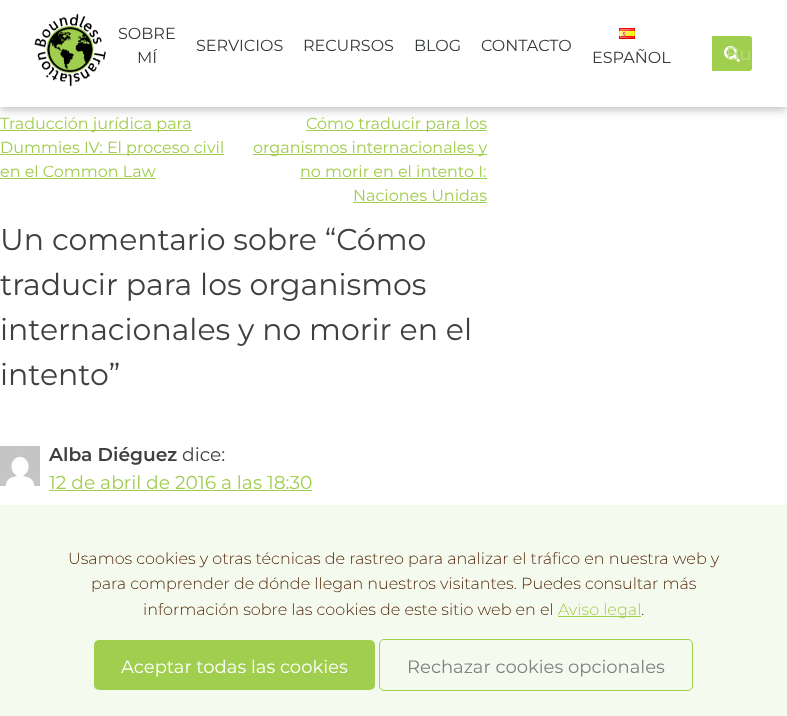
async function draw(canvas) {
  canvas.width = 787
  canvas.height = 716
  const ctx = canvas.getContext('2d')
  ctx.miterLimit = 4
  ctx.fontKerning = 'normal'
  async function loadImage(src) {
    const img = new Image()
    img.src = src
    await img.decode()
    return img
  }

  ctx.fillStyle = '#fff'
  ctx.fillRect(0, 0, 787, 716)
  ctx.fillStyle = '#0000003d'
  ctx.filter = 'blur(4px)'
  ctx.beginPath()
  ctx.rect(0, 3, 787, 107)
  ctx.fill()
  ctx.filter = 'none'
  ctx.fillStyle = '#fff'
  ctx.fillRect(0, 0, 787, 107)
  ctx.drawImage(await loadImage('image0.png'), 34, 13, 72, 74)
  ctx.font = '16px Montserrat'
  ctx.fillStyle = '#343838'
  ctx.fillText('SOBRE', 118, 39)
  ctx.fillText('MÍ', 137, 63)
  ctx.fillText('SERVICIOS', 196, 51)
  ctx.fillText('RECURSOS', 303, 51)
  ctx.fillText('BLOG', 414, 51)
  ctx.fillText('CONTACTO', 481, 51)
  ctx.drawImage(await loadImage('image1.png'), 619, 28, 16, 11)
  ctx.fillText('ESPAÑOL', 592, 63)
  ctx.fillStyle = '#a0ce4e'
  ctx.beginPath()
  ctx.roundRect(712, 36, 40, 35, [0, 3, 3, 0])
  ctx.fill()
  ctx.drawImage(await loadImage('image2.png'), 724, 46, 16, 16)
  ctx.font = '18px Montserrat'
  ctx.fillStyle = '#bcdc82'
  ctx.fillText('Bu', 726, 60)
  ctx.fillStyle = '#a0ce4e'
  ctx.fillRect(0, 130, 192, 1)
  ctx.font = '16px Montserrat'
  ctx.fillText('Traducción jurídica para', 0, 129)
  ctx.fillRect(0, 154, 224, 1)
  ctx.fillText('Dummies IV: El proceso civil', 0, 153)
  ctx.fillText('en el Common Law', 0, 177)
  ctx.fillRect(0, 178, 156, 1)
  ctx.fillRect(306, 130, 181, 1)
  ctx.fillText('Cómo traducir para los', 306, 129)
  ctx.fillRect(253, 154, 234, 1)
  ctx.fillText('organismos internacionales y', 253, 153)
  ctx.fillText('no morir en el intento I:', 300, 177)
  ctx.fillRect(300, 178, 187, 1)
  ctx.fillText('Naciones Unidas', 353, 201)
  ctx.fillRect(353, 202, 134, 1)
  ctx.font = '30px Montserrat'
  ctx.fillStyle = '#404040'
  ctx.fillText('Un comentario sobre “Cómo', 0, 250)
  ctx.fillText('traducir para los organismos', 0, 295)
  ctx.fillText('internacionales y no morir en el', 0, 340)
  ctx.fillText('intento”', 0, 385)
  ctx.drawImage(await loadImage('image3.png'), 0, 446, 40, 40)
  ctx.font = '600 18.7px Montserrat'
  ctx.fillText('Alba Diéguez', 49, 461)
  ctx.font = '18.7px Montserrat'
  ctx.fillText('dice:', 182, 461)
  ctx.fillStyle = '#a0ce4e'
  ctx.fillText('12 de abril de 2016 a las 18:30', 49, 489)
  ctx.fillRect(49, 490, 263, 1)
  ctx.fillStyle = '#f5faee'
  ctx.fillRect(0, 505, 787, 211)
  ctx.font = '300 16px Montserrat'
  ctx.fillStyle = '#52280b'
  ctx.fillText('Usamos cookies y otras técnicas de rastreo para analizar el tráfico en nuestra web y', 68, 564)
  ctx.fillText('para comprender de dónde llegan nuestros visitantes. Puedes consultar más', 91, 589)
  ctx.fillText('información sobre las cookies de este sitio web en el', 143, 615)
  ctx.fillStyle = '#a0ce4e'
  ctx.fillRect(558, 616, 83, 1)
  ctx.fillText('Aviso legal', 558, 615)
  ctx.fillStyle = '#52280b'
  ctx.fillText('.', 641, 615)
  ctx.fillStyle = '#a0ce4e'
  ctx.beginPath()
  ctx.roundRect(94, 640, 281, 50, 5)
  ctx.fill()
  ctx.font = '18px Montserrat'
  ctx.fillStyle = '#fff'
  ctx.fillText('Aceptar todas las cookies', 121, 673)
  ctx.beginPath()
  ctx.roundRect(379.5, 639.5, 313, 51, 4.5)
  ctx.strokeStyle = '#a0ce4e'
  ctx.stroke()
  ctx.fillStyle = '#808080'
  ctx.fillText('Rechazar cookies opcionales', 407, 673)
}

draw(document.querySelector('canvas'))
